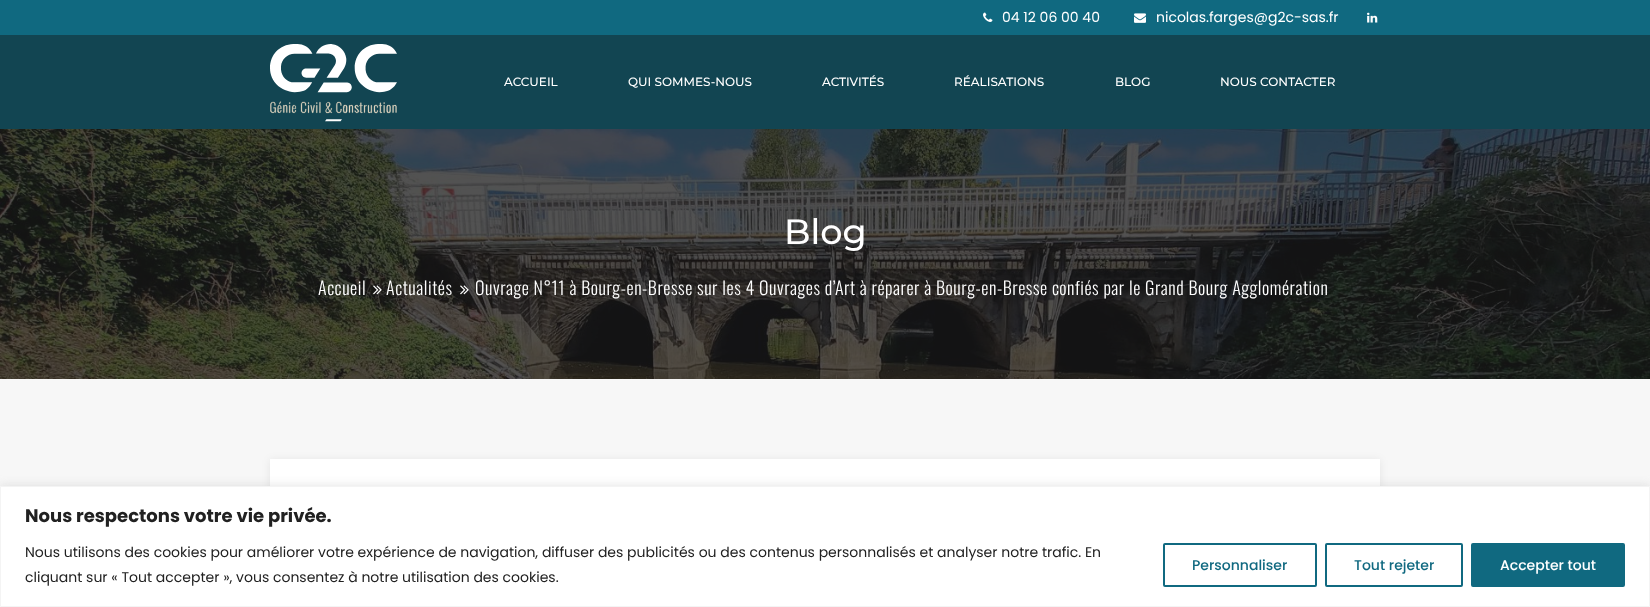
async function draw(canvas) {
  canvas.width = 1650
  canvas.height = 607
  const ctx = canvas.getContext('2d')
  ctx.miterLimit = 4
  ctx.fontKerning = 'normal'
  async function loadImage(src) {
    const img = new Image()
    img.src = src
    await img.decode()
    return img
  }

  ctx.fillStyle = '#fff'
  ctx.fillRect(0, 0, 1650, 607)
  ctx.fillStyle = '#106980'
  ctx.fillRect(0, 0, 1650, 35)
  ctx.drawImage(await loadImage('image0.png'), 983, 12, 10, 10)
  ctx.font = '14px Poppins'
  ctx.fillStyle = '#fff'
  ctx.fillText('04 12 06 00 40', 1002, 22)
  ctx.drawImage(await loadImage('image1.png'), 1134, 13, 12, 10)
  ctx.fillText('nicolas.farges@g2c-sas.fr', 1156, 22)
  ctx.drawImage(await loadImage('image2.png'), 1367, 12, 11, 11)
  ctx.fillStyle = '#124552'
  ctx.fillRect(0, 35, 1650, 94)
  ctx.drawImage(await loadImage('image3.png'), 270, 44, 127, 78)
  ctx.font = '500 12px Montserrat'
  ctx.fillStyle = '#fff'
  ctx.fillText('ACCUEIL', 504, 86)
  ctx.fillText('QUI SOMMES-NOUS', 628, 86)
  ctx.fillText('ACTIVITÉS', 822, 86)
  ctx.fillText('RÉALISATIONS', 954, 86)
  ctx.fillText('BLOG', 1115, 86)
  ctx.fillText('NOUS CONTACTER', 1220, 86)
  ctx.drawImage(await loadImage('image4.png'), 0, 129, 1650, 250)
  ctx.font = '500 35px Montserrat'
  ctx.fillText('Blog', 784, 244)
  ctx.letterSpacing = '0.56px'
  ctx.font = '300 18px Oswald'
  ctx.fillText('Accueil', 318, 295)
  ctx.drawImage(await loadImage('image5.png'), 373, 285, 9, 10)
  ctx.fillText('Actualités', 386, 295)
  ctx.drawImage(await loadImage('image6.png'), 460, 285, 9, 10)
  ctx.fillText('Ouvrage N°11 à Bourg-en-Bresse sur les 4 Ouvrages d’Art à réparer à Bourg-en-Bresse confiés par le Grand Bourg Agglomération', 475, 295)
  ctx.fillStyle = '#f7f7f7'
  ctx.fillRect(0, 379, 1650, 107)
  ctx.fillStyle = '#00000014'
  ctx.filter = 'blur(4px)'
  ctx.beginPath()
  ctx.rect(270, 460, 1110, 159)
  ctx.fill()
  ctx.filter = 'none'
  ctx.fillStyle = '#fff'
  ctx.fillRect(270, 459, 1110, 27)
  ctx.fillStyle = '#acabab4d'
  ctx.filter = 'blur(5px)'
  ctx.beginPath()
  ctx.rect(0, 485, 1650, 121)
  ctx.fill()
  ctx.filter = 'none'
  ctx.fillStyle = '#fff'
  ctx.beginPath()
  ctx.rect(0.5, 486.5, 1649, 120)
  ctx.fill()
  ctx.strokeStyle = '#f4f4f4'
  ctx.stroke()
  ctx.letterSpacing = '0px'
  ctx.font = 'bold 18px Poppins'
  ctx.fillStyle = '#212121'
  ctx.fillText('Nous respectons votre vie privée.', 25, 522)
  ctx.font = '14px Poppins'
  ctx.fillText('Nous utilisons des cookies pour améliorer votre expérience de navigation, diffuser des publicités ou des contenus personnalisés et analyser notre trafic. En', 25, 557)
  ctx.fillText('cliquant sur « Tout accepter », vous consentez à notre utilisation des cookies.', 25, 582)
  ctx.beginPath()
  ctx.roundRect(1164, 544, 152, 42, 1)
  ctx.strokeStyle = '#106980'
  ctx.lineWidth = 2
  ctx.stroke()
  ctx.font = '500 14px Poppins'
  ctx.fillStyle = '#106980'
  ctx.fillText('Personnaliser', 1192, 570)
  ctx.beginPath()
  ctx.roundRect(1326, 544, 136, 42, 1)
  ctx.stroke()
  ctx.fillText('Tout rejeter', 1354, 570)
  ctx.beginPath()
  ctx.roundRect(1472, 544, 152, 42, 1)
  ctx.fill()
  ctx.stroke()
  ctx.fillStyle = '#fff'
  ctx.fillText('Accepter tout', 1500, 570)
}

draw(document.querySelector('canvas'))
